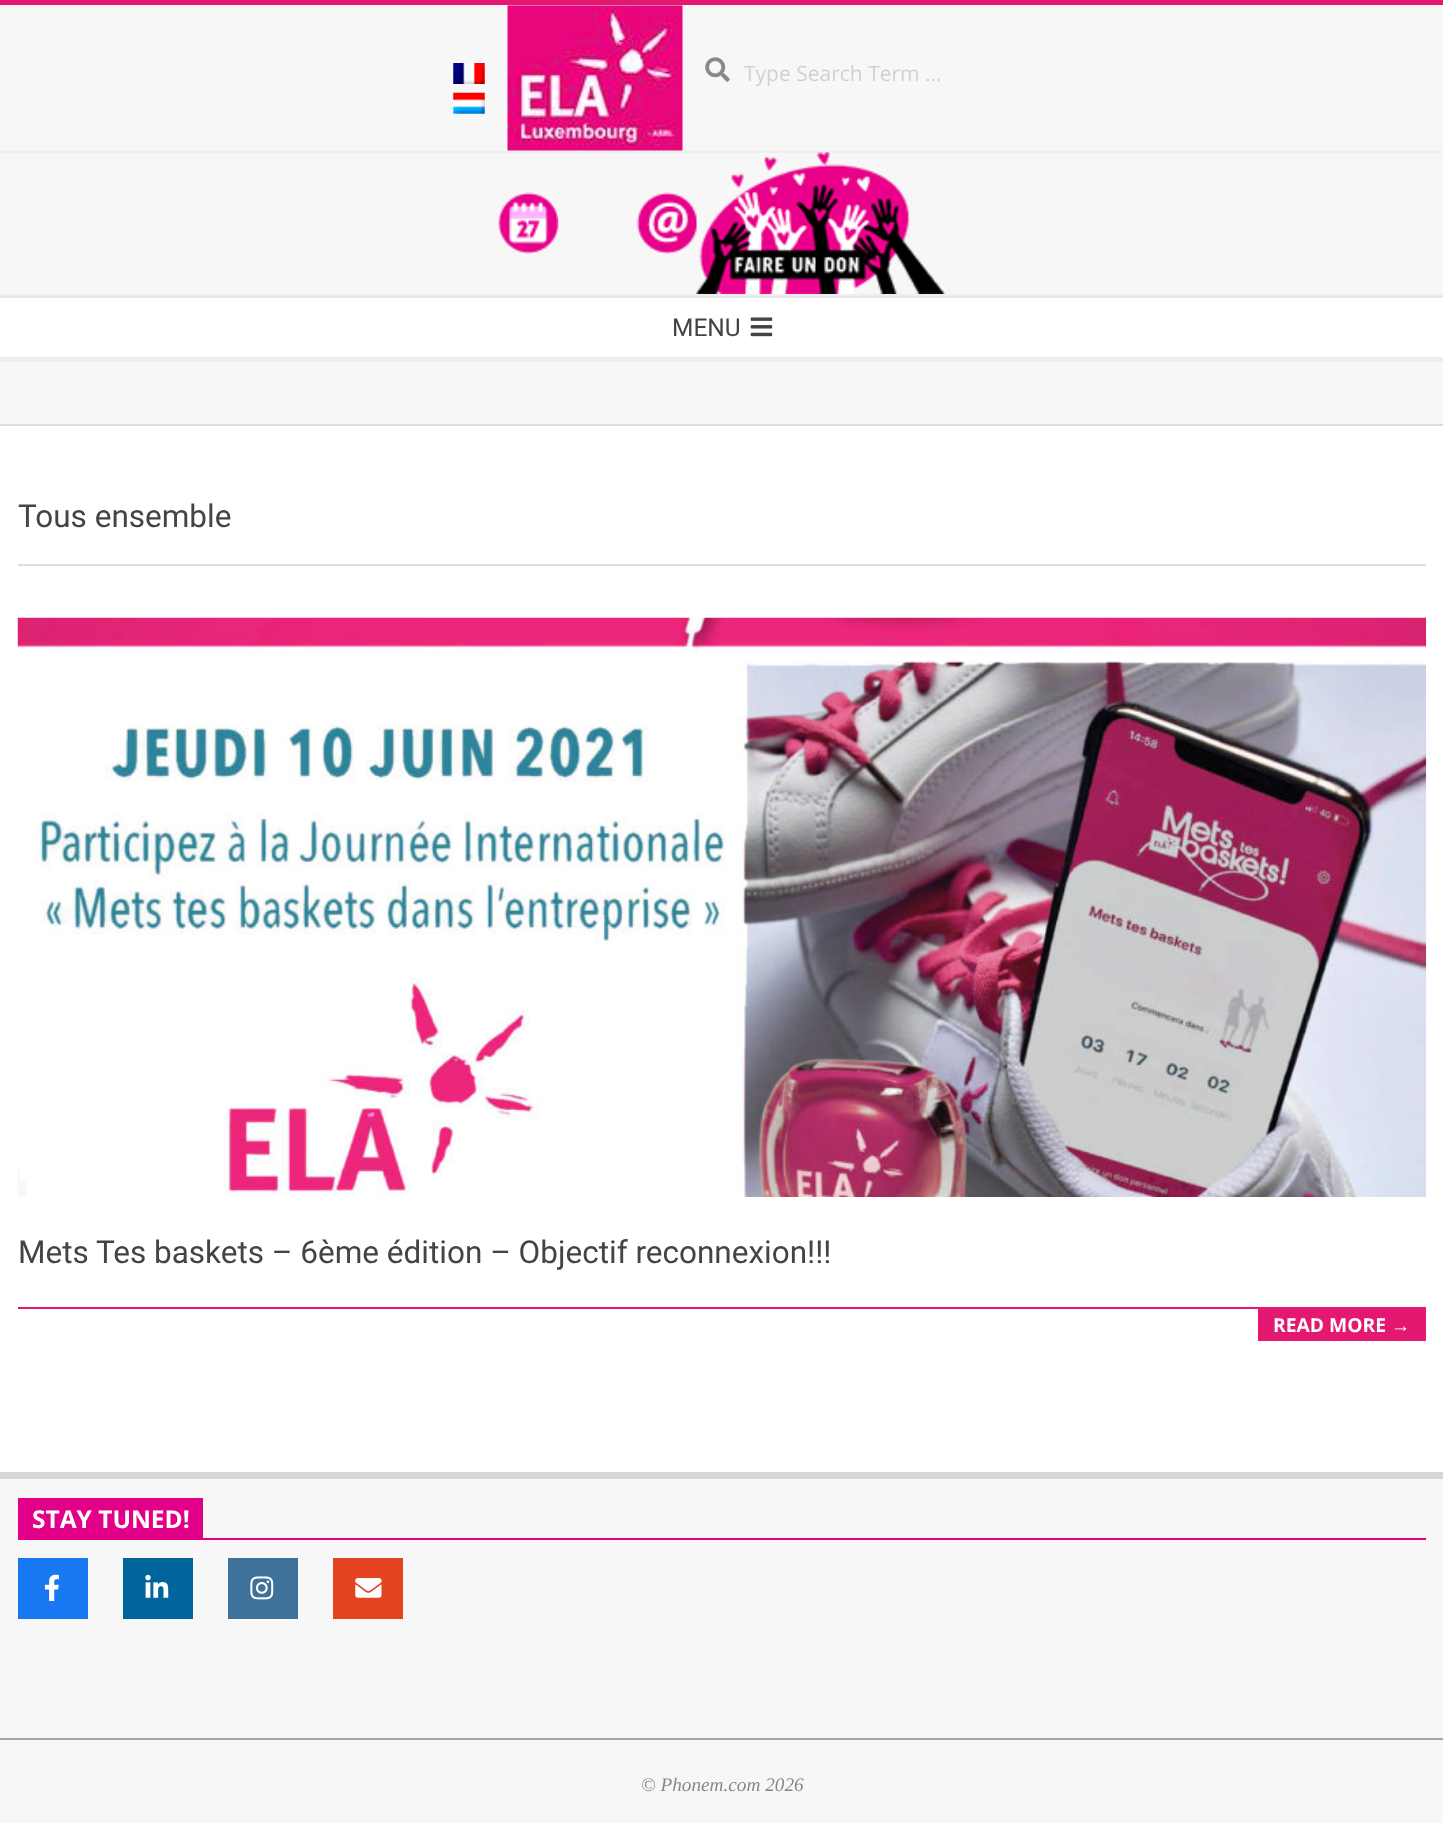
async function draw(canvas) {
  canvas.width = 1443
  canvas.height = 1823
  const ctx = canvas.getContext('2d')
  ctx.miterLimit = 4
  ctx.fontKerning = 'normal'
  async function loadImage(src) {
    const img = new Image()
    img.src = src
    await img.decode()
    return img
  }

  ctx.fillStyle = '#f7f7f7'
  ctx.fillRect(0, 0, 1443, 1823)
  ctx.fillStyle = '#e41871'
  ctx.fillRect(0, 0, 1443, 5)
  ctx.fillStyle = '#eee'
  ctx.fillRect(0, 294, 1443, 2)
  ctx.drawImage(await loadImage('image0.png'), 453, 63, 32, 21)
  ctx.drawImage(await loadImage('image1.png'), 453, 92, 32, 22)
  ctx.drawImage(await loadImage('image2.png'), 507, 5, 176, 146)
  ctx.drawImage(await loadImage('image3.png'), 705, 57, 25, 25)
  ctx.font = '21px Open Sans'
  ctx.fillStyle = '#d1d1d1'
  ctx.fillText('Type Search Term …', 744, 81)
  ctx.fillStyle = '#eee'
  ctx.fillRect(0, 151, 1443, 2)
  ctx.drawImage(await loadImage('image4.png'), 498, 192, 61, 62)
  ctx.drawImage(await loadImage('image5.png'), 637, 192, 60, 62)
  ctx.drawImage(await loadImage('image6.png'), 696, 152, 249, 142)
  ctx.fillStyle = '#fff'
  ctx.fillRect(0, 298, 1443, 59)
  ctx.fillStyle = '#eee'
  ctx.fillRect(0, 357, 1443, 5)
  ctx.fillStyle = '#e6e6e6'
  ctx.fillRect(0, 296, 1443, 2)
  ctx.font = '24.5px Roboto'
  ctx.fillStyle = '#444'
  ctx.fillText('MENU', 672, 336)
  ctx.drawImage(await loadImage('image7.png'), 750, 317, 23, 20)
  ctx.fillStyle = '#ddd'
  ctx.fillRect(0, 424, 1443, 2)
  ctx.fillStyle = '#fff'
  ctx.fillRect(0, 426, 1443, 1046)
  ctx.fillStyle = '#ddd'
  ctx.fillRect(18, 564, 1408, 2)
  ctx.font = '31.5px Roboto'
  ctx.fillStyle = '#444'
  ctx.fillText('Tous ensemble', 18, 527)
  ctx.drawImage(await loadImage('image8.png'), 17, 617, 1410, 580)
  ctx.fillText('Mets Tes baskets – 6ème édition – Objectif reconnexion!!!', 18, 1263)
  ctx.fillStyle = '#e41871'
  ctx.fillRect(18, 1307, 1408, 2)
  ctx.fillRect(1258, 1309, 168, 32)
  ctx.font = 'bold 19.25px Open Sans'
  ctx.fillStyle = '#fff'
  ctx.fillText('READ MORE', 1273, 1332)
  ctx.font = 'bold 19.25px Liberation Sans'
  ctx.fillText('→', 1391, 1332)
  ctx.fillStyle = '#d7d7d7'
  ctx.fillRect(0, 1472, 1443, 7)
  ctx.fillStyle = '#e20088'
  ctx.fillRect(18, 1498, 185, 40)
  ctx.font = 'bold 24.5px Open Sans'
  ctx.fillStyle = '#fff'
  ctx.fillText('STAY TUNED!', 32, 1528)
  ctx.fillStyle = '#e20088'
  ctx.fillRect(18, 1538, 1408, 2)
  ctx.fillStyle = '#1778f2'
  ctx.fillRect(18, 1558, 70, 61)
  ctx.drawImage(await loadImage('image9.png'), 44, 1574, 15, 27)
  ctx.fillStyle = '#00659b'
  ctx.fillRect(123, 1558, 70, 61)
  ctx.drawImage(await loadImage('image10.png'), 145, 1574, 24, 24)
  ctx.fillStyle = '#3f729b'
  ctx.fillRect(228, 1558, 70, 61)
  ctx.drawImage(await loadImage('image11.png'), 250, 1576, 24, 24)
  ctx.fillStyle = '#e44321'
  ctx.fillRect(333, 1558, 70, 61)
  ctx.drawImage(await loadImage('image12.png'), 355, 1578, 27, 20)
  ctx.fillStyle = '#a5a5a5'
  ctx.fillRect(0, 1738, 1443, 2)
  ctx.font = 'italic 19.25px Liberation Serif'
  ctx.fillStyle = '#888'
  ctx.fillText('© Phonem.com 2026', 641, 1791)
}

draw(document.querySelector('canvas'))
